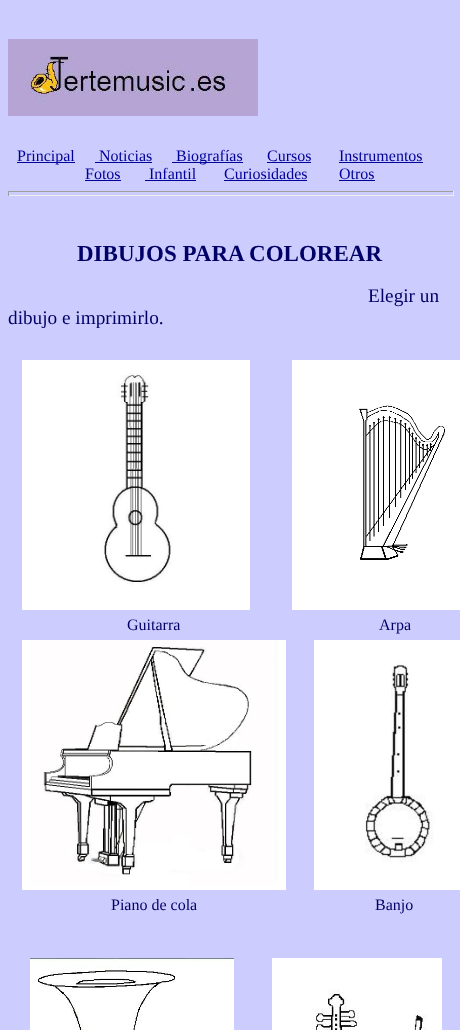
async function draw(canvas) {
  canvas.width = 460
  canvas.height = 1030
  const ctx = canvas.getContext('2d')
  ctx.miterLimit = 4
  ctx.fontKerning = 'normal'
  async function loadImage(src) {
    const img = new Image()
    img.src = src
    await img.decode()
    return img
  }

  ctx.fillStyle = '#ccf'
  ctx.fillRect(0, 0, 460, 1030)
  ctx.drawImage(await loadImage('image0.png'), 8, 39, 250, 77)
  ctx.fillStyle = '#009'
  ctx.fillRect(17, 162, 58, 1)
  ctx.font = '16px Liberation Serif'
  ctx.fillText('Principal', 17, 161)
  ctx.fillText('Noticias', 99, 161)
  ctx.fillRect(95, 162, 57, 1)
  ctx.fillRect(172, 162, 71, 1)
  ctx.fillText('Biografías', 176, 161)
  ctx.fillText('Cursos', 267, 161)
  ctx.fillRect(267, 162, 44, 1)
  ctx.fillText('Instrumentos', 339, 161)
  ctx.fillRect(339, 162, 84, 1)
  ctx.fillText('Fotos', 85, 179)
  ctx.fillRect(85, 180, 36, 1)
  ctx.fillText('Infantil', 149, 179)
  ctx.fillRect(145, 180, 51, 1)
  ctx.fillText('Curiosidades', 224, 179)
  ctx.fillRect(224, 180, 83, 1)
  ctx.fillText('Otros', 339, 179)
  ctx.fillRect(339, 180, 36, 1)
  ctx.fillStyle = '#9f9f9f'
  ctx.fillRect(8, 191, 446, 1)
  ctx.fillStyle = '#eee'
  ctx.fillRect(453, 191, 1, 5)
  ctx.fillRect(8, 195, 446, 1)
  ctx.fillStyle = '#9f9f9f'
  ctx.fillRect(8, 191, 1, 5)
  ctx.font = 'bold 23px Liberation Serif'
  ctx.fillStyle = '#006'
  ctx.fillText('DIBUJOS PARA COLOREAR', 77, 261)
  ctx.font = '19.25px Liberation Serif'
  ctx.fillText('Elegir un', 368, 302)
  ctx.fillText('dibujo e imprimirlo.', 8, 324)
  ctx.drawImage(await loadImage('image1.png'), 22, 360, 228, 250)
  ctx.drawImage(await loadImage('image2.png'), 292, 360, 168, 250)
  ctx.font = '16px Liberation Serif'
  ctx.fillText('Guitarra', 127, 630)
  ctx.fillText('Arpa', 379, 630)
  ctx.drawImage(await loadImage('image3.png'), 22, 640, 264, 250)
  ctx.drawImage(await loadImage('image4.png'), 314, 640, 146, 250)
  ctx.fillText('Piano de cola', 111, 910)
  ctx.fillText('Banjo', 375, 910)
  ctx.drawImage(await loadImage('image5.png'), 30, 958, 204, 72)
  ctx.drawImage(await loadImage('image6.png'), 272, 958, 170, 72)
}

draw(document.querySelector('canvas'))
